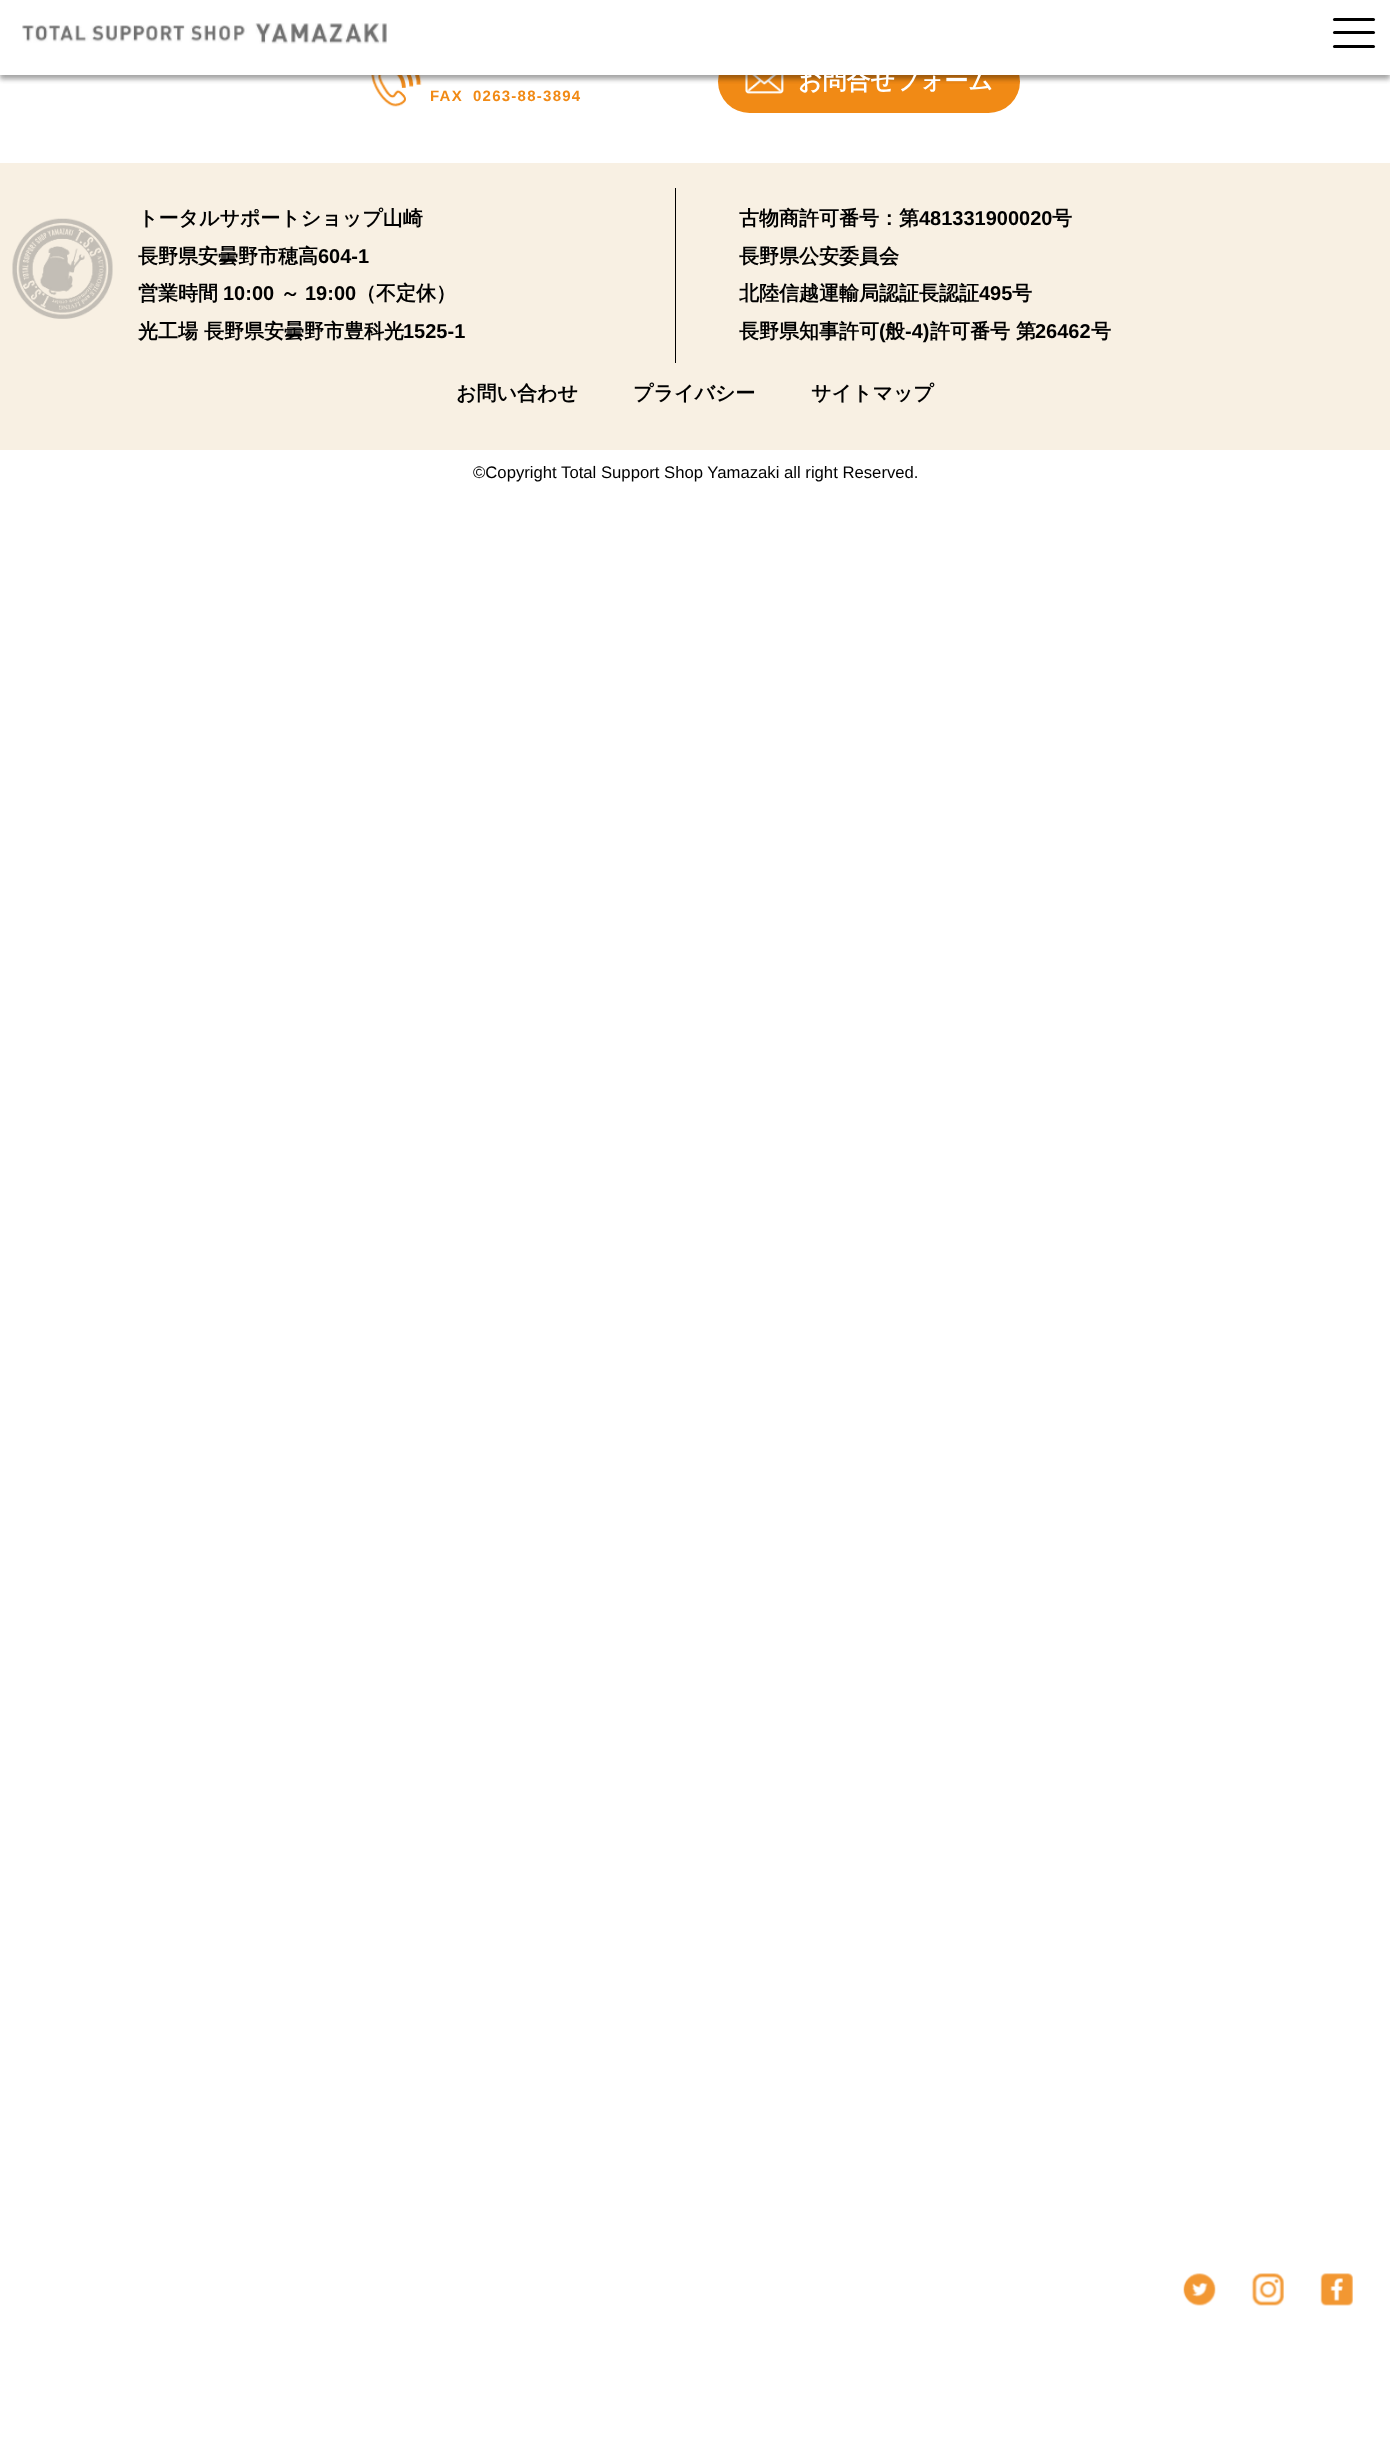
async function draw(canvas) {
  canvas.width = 1390
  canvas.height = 2452
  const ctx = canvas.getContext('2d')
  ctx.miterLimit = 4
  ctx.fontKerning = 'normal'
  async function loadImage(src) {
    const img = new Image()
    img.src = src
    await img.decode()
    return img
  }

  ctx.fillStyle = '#fff'
  ctx.fillRect(0, 0, 1390, 2452)
  ctx.fillStyle = '#f18a15'
  ctx.beginPath()
  ctx.roundRect(718, 50, 302, 63, 31.5)
  ctx.fill()
  ctx.drawImage(await loadImage('image4.png'), 745, 75, 39, 19)
  ctx.drawImage(await loadImage('image5.png'), 371, 75, 51, 32)
  ctx.fillStyle = '#00000033'
  ctx.filter = 'blur(2.5px)'
  ctx.beginPath()
  ctx.rect(0, 4, 1390, 75)
  ctx.fill()
  ctx.filter = 'none'
  ctx.filter = 'blur(2.5px)'
  ctx.beginPath()
  ctx.rect(0, 4, 1390, 75)
  ctx.fill()
  ctx.filter = 'none'
  ctx.fillStyle = '#fff'
  ctx.fillRect(0, 0, 1390, 75)
  ctx.drawImage(await loadImage('image0.png'), 22, 23, 365, 21)
  ctx.fillStyle = '#000'
  ctx.beginPath()
  ctx.roundRect(1333, 18, 42, 3, 1.5)
  ctx.fill()
  ctx.beginPath()
  ctx.roundRect(1333, 31, 42, 3, 1.5)
  ctx.fill()
  ctx.beginPath()
  ctx.roundRect(1333, 45, 42, 3, 1.5)
  ctx.fill()
  ctx.drawImage(await loadImage('image1.png'), 1183, 2273, 33, 33)
  ctx.drawImage(await loadImage('image2.png'), 1251, 2273, 33, 33)
  ctx.drawImage(await loadImage('image3.png'), 1320, 2273, 33, 33)
  ctx.font = 'bold 24px WenQuanYi Zen Hei'
  ctx.fillStyle = '#fff'
  ctx.fillText('お問合せフォーム', 798, 89)
  ctx.letterSpacing = '1.25px'
  ctx.font = 'bold 15px Liberation Sans'
  ctx.fillStyle = '#f18a15'
  ctx.fillText('FAX', 430, 101)
  ctx.fillText('0263-88-3894', 473, 101)
  ctx.fillStyle = '#f8f0e3'
  ctx.fillRect(0, 163, 1390, 287)
  ctx.fillStyle = '#000'
  ctx.fillRect(675, 188, 1, 175)
  ctx.drawImage(await loadImage('image6.png'), 12, 218, 101, 101)
  ctx.letterSpacing = '0px'
  ctx.font = 'bold 20px WenQuanYi Zen Hei'
  ctx.fillText('トータルサポートショップ山崎', 138, 225)
  ctx.fillText('長野県安曇野市穂高', 138, 263)
  ctx.font = 'bold 20px Liberation Sans'
  ctx.fillText('604-1', 318, 263)
  ctx.font = 'bold 20px WenQuanYi Zen Hei'
  ctx.fillText('営業時間', 138, 300)
  ctx.font = 'bold 20px Liberation Sans'
  ctx.fillText('10:00', 223, 300)
  ctx.font = 'bold 20px WenQuanYi Zen Hei'
  ctx.fillText('～', 280, 300)
  ctx.font = 'bold 20px Liberation Sans'
  ctx.fillText('19:00', 305, 300)
  ctx.font = 'bold 20px WenQuanYi Zen Hei'
  ctx.fillText('（不定休）', 356, 300)
  ctx.fillText('光工場 長野県安曇野市豊科光', 138, 338)
  ctx.font = 'bold 20px Liberation Sans'
  ctx.fillText('1525-1', 403, 338)
  ctx.font = 'bold 20px WenQuanYi Zen Hei'
  ctx.fillText('古物商許可番号：第', 739, 225)
  ctx.font = 'bold 20px Liberation Sans'
  ctx.fillText('481331900020', 919, 225)
  ctx.font = 'bold 20px WenQuanYi Zen Hei'
  ctx.fillText('号', 1052, 225)
  ctx.fillText('長野県公安委員会', 739, 263)
  ctx.fillText('北陸信越運輸局認証長認証', 739, 300)
  ctx.font = 'bold 20px Liberation Sans'
  ctx.fillText('495', 979, 300)
  ctx.font = 'bold 20px WenQuanYi Zen Hei'
  ctx.fillText('号', 1012, 300)
  ctx.fillText('長野県知事許可', 739, 338)
  ctx.font = 'bold 20px Liberation Sans'
  ctx.fillText('(', 879, 338)
  ctx.font = 'bold 20px WenQuanYi Zen Hei'
  ctx.fillText('般', 885, 338)
  ctx.font = 'bold 20px Liberation Sans'
  ctx.fillText('-4)', 905, 338)
  ctx.font = 'bold 20px WenQuanYi Zen Hei'
  ctx.fillText('許可番号 第', 930, 338)
  ctx.font = 'bold 20px Liberation Sans'
  ctx.fillText('26462', 1035, 338)
  ctx.font = 'bold 20px WenQuanYi Zen Hei'
  ctx.fillText('号', 1091, 338)
  ctx.fillText('お問い合わせ', 456, 400)
  ctx.fillText('プライバシー', 633, 400)
  ctx.fillText('サイトマップ', 811, 400)
  ctx.font = '16.7px Liberation Sans'
  ctx.fillText('©Copyright Total Support Shop Yamazaki all right Reserved.', 473, 478)
}

draw(document.querySelector('canvas'))
